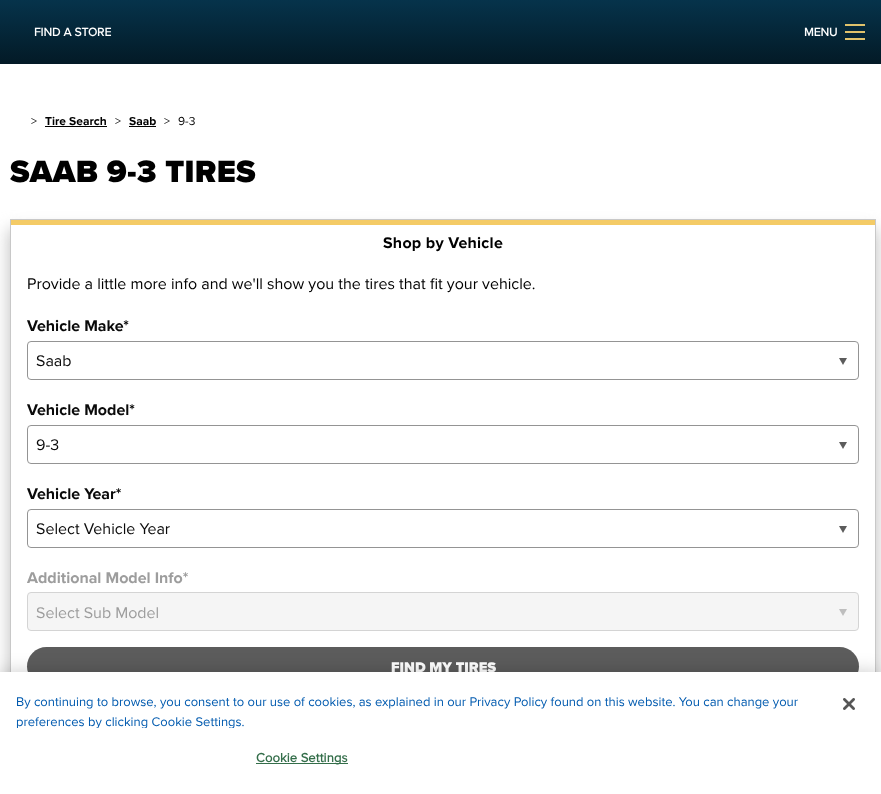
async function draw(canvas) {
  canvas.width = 881
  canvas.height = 794
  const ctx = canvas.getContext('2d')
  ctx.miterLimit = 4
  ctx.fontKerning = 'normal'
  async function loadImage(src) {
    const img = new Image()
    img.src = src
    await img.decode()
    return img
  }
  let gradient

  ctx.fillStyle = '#fff'
  ctx.fillRect(0, 0, 881, 794)
  gradient = ctx.createLinearGradient(441, 0, 441, 64)
  gradient.addColorStop(0, '#06334b')
  gradient.addColorStop(1, '#031a26')
  ctx.fillStyle = gradient
  ctx.fillRect(0, 0, 881, 64)
  ctx.font = 'bold 12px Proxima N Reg'
  ctx.fillStyle = '#fff'
  ctx.fillText('FIND A STORE', 34, 36)
  ctx.fillText('MENU', 804, 36)
  ctx.fillStyle = '#e0c26b'
  ctx.fillRect(845, 38, 20, 2)
  ctx.fillRect(845, 31, 20, 2)
  ctx.fillRect(845, 24, 20, 2)
  ctx.font = '12px Proxima N Reg'
  ctx.fillStyle = '#000'
  ctx.fillText('>', 31, 125)
  ctx.font = 'bold 12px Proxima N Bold'
  ctx.fillText('Tire Search', 45, 125)
  ctx.fillRect(45, 126, 62, 1)
  ctx.font = '12px Proxima N Reg'
  ctx.fillText('>', 115, 125)
  ctx.font = 'bold 12px Proxima N Bold'
  ctx.fillText('Saab', 129, 125)
  ctx.fillRect(129, 126, 27, 1)
  ctx.font = '12px Proxima N Reg'
  ctx.fillText('>', 164, 125)
  ctx.fillText('9-3', 178, 125)
  ctx.letterSpacing = '0.25px'
  ctx.font = '900 32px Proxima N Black'
  ctx.fillText('SAAB 9-3 TIRES', 10, 182)
  ctx.save()
  ctx.beginPath()
  ctx.moveTo(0, 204)
  ctx.lineTo(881, 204)
  ctx.lineTo(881, 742)
  ctx.lineTo(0, 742)
  ctx.closePath()
  ctx.moveTo(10, 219)
  ctx.lineTo(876, 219)
  ctx.lineTo(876, 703)
  ctx.lineTo(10, 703)
  ctx.closePath()
  ctx.clip('evenodd')
  ctx.fillStyle = '#c8c8c8'
  ctx.filter = 'blur(8px)'
  ctx.beginPath()
  ctx.rect(8, 229, 870, 488)
  ctx.fill()
  ctx.filter = 'none'
  ctx.restore()
  ctx.strokeStyle = '#c8c8c8'
  ctx.strokeRect(10.5, 219.5, 865, 483)
  ctx.fillStyle = '#f4cb66'
  ctx.fillRect(11, 220, 864, 5)
  ctx.font = 'bold 16px Proxima N Bold'
  ctx.fillStyle = '#000'
  ctx.fillText('Shop by Vehicle', 383, 248)
  ctx.letterSpacing = '0px'
  ctx.font = '16px Proxima N Reg'
  ctx.fillText('Provide a little more info and we\'ll show you the tires that fit your vehicle.', 27, 289)
  ctx.font = 'bold 16px Proxima N Bold'
  ctx.fillStyle = '#0a0a0a'
  ctx.fillText('Vehicle Make*', 27, 331)
  ctx.beginPath()
  ctx.roundRect(27.5, 341.5, 831, 38, 3.5)
  ctx.strokeStyle = '#949494'
  ctx.stroke()
  ctx.font = '16px Proxima N Reg'
  ctx.fillText('Saab', 36, 366)
  ctx.fillStyle = '#5c5c5c'
  ctx.beginPath()
  ctx.moveTo(839, 358)
  ctx.lineTo(847, 358)
  ctx.lineTo(843, 365)
  ctx.closePath()
  ctx.fill()
  ctx.font = 'bold 16px Proxima N Bold'
  ctx.fillStyle = '#0a0a0a'
  ctx.fillText('Vehicle Model*', 27, 415)
  ctx.beginPath()
  ctx.roundRect(27.5, 425.5, 831, 38, 3.5)
  ctx.stroke()
  ctx.font = '16px Proxima N Reg'
  ctx.fillText('9-3', 36, 450)
  ctx.fillStyle = '#5c5c5c'
  ctx.beginPath()
  ctx.moveTo(839, 442)
  ctx.lineTo(847, 442)
  ctx.lineTo(843, 449)
  ctx.closePath()
  ctx.fill()
  ctx.font = 'bold 16px Proxima N Bold'
  ctx.fillStyle = '#0a0a0a'
  ctx.fillText('Vehicle Year*', 27, 499)
  ctx.beginPath()
  ctx.roundRect(27.5, 509.5, 831, 38, 3.5)
  ctx.stroke()
  ctx.font = '16px Proxima N Reg'
  ctx.fillText('Select Vehicle Year', 36, 534)
  ctx.fillStyle = '#5c5c5c'
  ctx.beginPath()
  ctx.moveTo(839, 526)
  ctx.lineTo(847, 526)
  ctx.lineTo(843, 533)
  ctx.closePath()
  ctx.fill()
  ctx.font = 'bold 16px Proxima N Bold'
  ctx.fillStyle = '#9d9d9d'
  ctx.fillText('Additional Model Info*', 27, 583)
  ctx.fillStyle = '#f5f5f5'
  ctx.beginPath()
  ctx.roundRect(27.5, 592.5, 831, 38, 3.5)
  ctx.fill()
  ctx.strokeStyle = '#d4d4d4'
  ctx.stroke()
  ctx.font = '16px Proxima N Reg'
  ctx.fillStyle = '#9d9d9d'
  ctx.fillText('Select Sub Model', 36, 618)
  ctx.fillStyle = '#bebebe'
  ctx.beginPath()
  ctx.moveTo(839, 609)
  ctx.lineTo(847, 609)
  ctx.lineTo(843, 616)
  ctx.closePath()
  ctx.fill()
  ctx.fillStyle = '#5c5c5c'
  ctx.beginPath()
  ctx.roundRect(27, 647, 832, 39, 19.5)
  ctx.fill()
  ctx.font = '900 14.5px Proxima N Black'
  ctx.fillStyle = '#fff'
  ctx.fillText('FIND MY TIRES', 391, 672)
  ctx.fillStyle = '#00000033'
  ctx.filter = 'blur(9px)'
  ctx.beginPath()
  ctx.rect(0, 672, 881, 122)
  ctx.fill()
  ctx.filter = 'none'
  ctx.fillStyle = '#fff'
  ctx.fillRect(0, 672, 881, 122)
  ctx.font = '13px Proxima N Reg'
  ctx.fillStyle = '#005aaf'
  ctx.fillText('By continuing to browse, you consent to our use of cookies, as explained in our Privacy Policy found on this website. You can change your', 16, 706)
  ctx.save()
  ctx.beginPath()
  ctx.rect(16, 692, 805, 36)
  ctx.clip()
  ctx.fillText('preferences by clicking Cookie Settings.', 16, 726)
  ctx.restore()
  ctx.fillStyle = '#346e4a'
  ctx.fillRect(256, 763, 92, 1)
  ctx.letterSpacing = '0.1px'
  ctx.font = 'bold 13px Proxima N Reg'
  ctx.fillText('Cookie Settings', 256, 762)
  ctx.drawImage(await loadImage('image0.png'), 843, 698, 12, 12)
}

draw(document.querySelector('canvas'))
